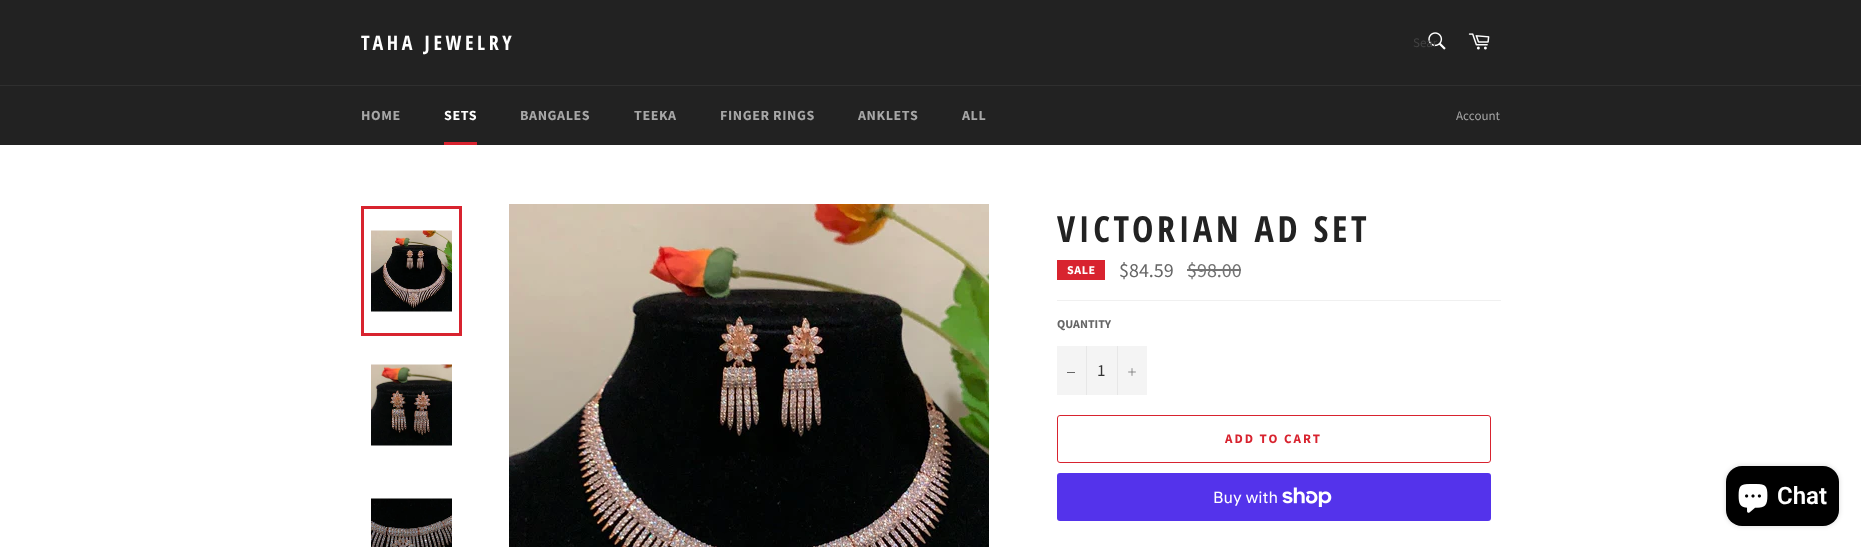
async function draw(canvas) {
  canvas.width = 1861
  canvas.height = 547
  const ctx = canvas.getContext('2d')
  ctx.miterLimit = 4
  ctx.fontKerning = 'normal'
  async function loadImage(src) {
    const img = new Image()
    img.src = src
    await img.decode()
    return img
  }

  ctx.fillStyle = '#222'
  ctx.fillRect(0, 0, 1861, 547)
  ctx.letterSpacing = '3.6px'
  ctx.font = 'bold 20px Open Sans Condensed'
  ctx.fillStyle = '#fff'
  ctx.fillText('TAHA JEWELRY', 361, 50)
  ctx.drawImage(await loadImage('image0.png'), 1428, 32, 18, 18)
  ctx.letterSpacing = '0px'
  ctx.font = '13px Source Sans Pro'
  ctx.fillStyle = '#424242'
  ctx.fillText('Sear', 1413, 47)
  ctx.drawImage(await loadImage('image1.png'), 1468, 33, 22, 17)
  ctx.fillStyle = '#2f2f2f'
  ctx.fillRect(0, 85, 1861, 1)
  ctx.letterSpacing = '0.6px'
  ctx.font = 'bold 14px Source Sans Pro'
  ctx.fillStyle = '#a7a7a7'
  ctx.fillText('HOME', 361, 120)
  ctx.fillStyle = '#fff'
  ctx.fillText('SETS', 444, 120)
  ctx.fillStyle = '#d8232f'
  ctx.fillRect(444, 142, 33, 3)
  ctx.fillStyle = '#a7a7a7'
  ctx.fillText('BANGALES', 520, 120)
  ctx.fillText('TEEKA', 634, 120)
  ctx.fillText('FINGER RINGS', 720, 120)
  ctx.fillText('ANKLETS', 858, 120)
  ctx.fillText('ALL', 962, 120)
  ctx.letterSpacing = '0px'
  ctx.font = '13px Source Sans Pro'
  ctx.fillText('Account', 1456, 120)
  ctx.fillStyle = '#fff'
  ctx.fillRect(0, 145, 1861, 402)
  ctx.drawImage(await loadImage('image2.png'), 371, 230, 81, 82)
  ctx.strokeStyle = '#d8232f'
  ctx.lineWidth = 3
  ctx.strokeRect(362.5, 207.5, 98, 127)
  ctx.drawImage(await loadImage('image3.png'), 371, 364, 81, 82)
  ctx.drawImage(await loadImage('image4.png'), 371, 498, 81, 49)
  ctx.drawImage(await loadImage('image5.png'), 509, 204, 480, 343)
  ctx.letterSpacing = '3.6px'
  ctx.font = 'bold 36px Open Sans Condensed'
  ctx.fillStyle = '#222'
  ctx.fillText('VICTORIAN AD SET', 1057, 242)
  ctx.fillStyle = '#d8232f'
  ctx.fillRect(1057, 260, 48, 20)
  ctx.letterSpacing = '0.6px'
  ctx.font = 'bold 12px Source Sans Pro'
  ctx.fillStyle = '#fff'
  ctx.fillText('SALE', 1067, 274)
  ctx.letterSpacing = '0px'
  ctx.font = '20px Source Sans Pro'
  ctx.fillStyle = '#666'
  ctx.fillText('$84.59', 1119, 277)
  ctx.fillStyle = '#737373'
  ctx.fillText('$98.00', 1187, 277)
  ctx.fillRect(1187, 269, 54, 2)
  ctx.fillStyle = '#f0f0f0'
  ctx.fillRect(1057, 300, 444, 1)
  ctx.font = 'bold 12px Source Sans Pro'
  ctx.fillStyle = '#666'
  ctx.fillText('QUANTITY', 1057, 328)
  ctx.fillStyle = '#f4f4f4'
  ctx.fillRect(1057, 346, 90, 49)
  ctx.fillStyle = '#e7e7e7'
  ctx.fillRect(1086, 346, 1, 49)
  ctx.fillStyle = '#666'
  ctx.fillRect(1067, 372, 8, 1)
  ctx.font = '17px Source Sans Pro'
  ctx.fillStyle = '#333'
  ctx.fillText('1', 1097, 376)
  ctx.fillStyle = '#e7e7e7'
  ctx.fillRect(1117, 346, 1, 49)
  ctx.drawImage(await loadImage('image6.png'), 1128, 368, 8, 8)
  ctx.beginPath()
  ctx.roundRect(1057.5, 415.5, 433, 47, 2.5)
  ctx.lineWidth = 1
  ctx.stroke()
  ctx.letterSpacing = '2px'
  ctx.font = 'bold 13px Source Sans Pro'
  ctx.fillStyle = '#d8232f'
  ctx.fillText('ADD TO CART', 1225, 443)
  ctx.fillStyle = '#5433eb'
  ctx.beginPath()
  ctx.roundRect(1057, 473, 434, 48, 3)
  ctx.fill()
  ctx.letterSpacing = '0px'
  ctx.font = '16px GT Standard'
  ctx.fillStyle = '#fff'
  ctx.fillText('Buy with', 1213, 503)
  ctx.drawImage(await loadImage('image7.png'), 1282, 487, 50, 20)
  ctx.fillStyle = '#00000026'
  ctx.filter = 'blur(2.5px)'
  ctx.beginPath()
  ctx.roundRect(1726, 466, 113, 60, 16)
  ctx.fill()
  ctx.filter = 'none'
  ctx.fillStyle = '#000'
  ctx.beginPath()
  ctx.roundRect(1726, 466, 113, 60, 16)
  ctx.fill()
  ctx.drawImage(await loadImage('image8.png'), 1738, 484, 30, 29)
  ctx.font = '600 24px Roboto'
  ctx.fillStyle = '#fff'
  ctx.fillText('Chat', 1777, 504)
}

draw(document.querySelector('canvas'))
